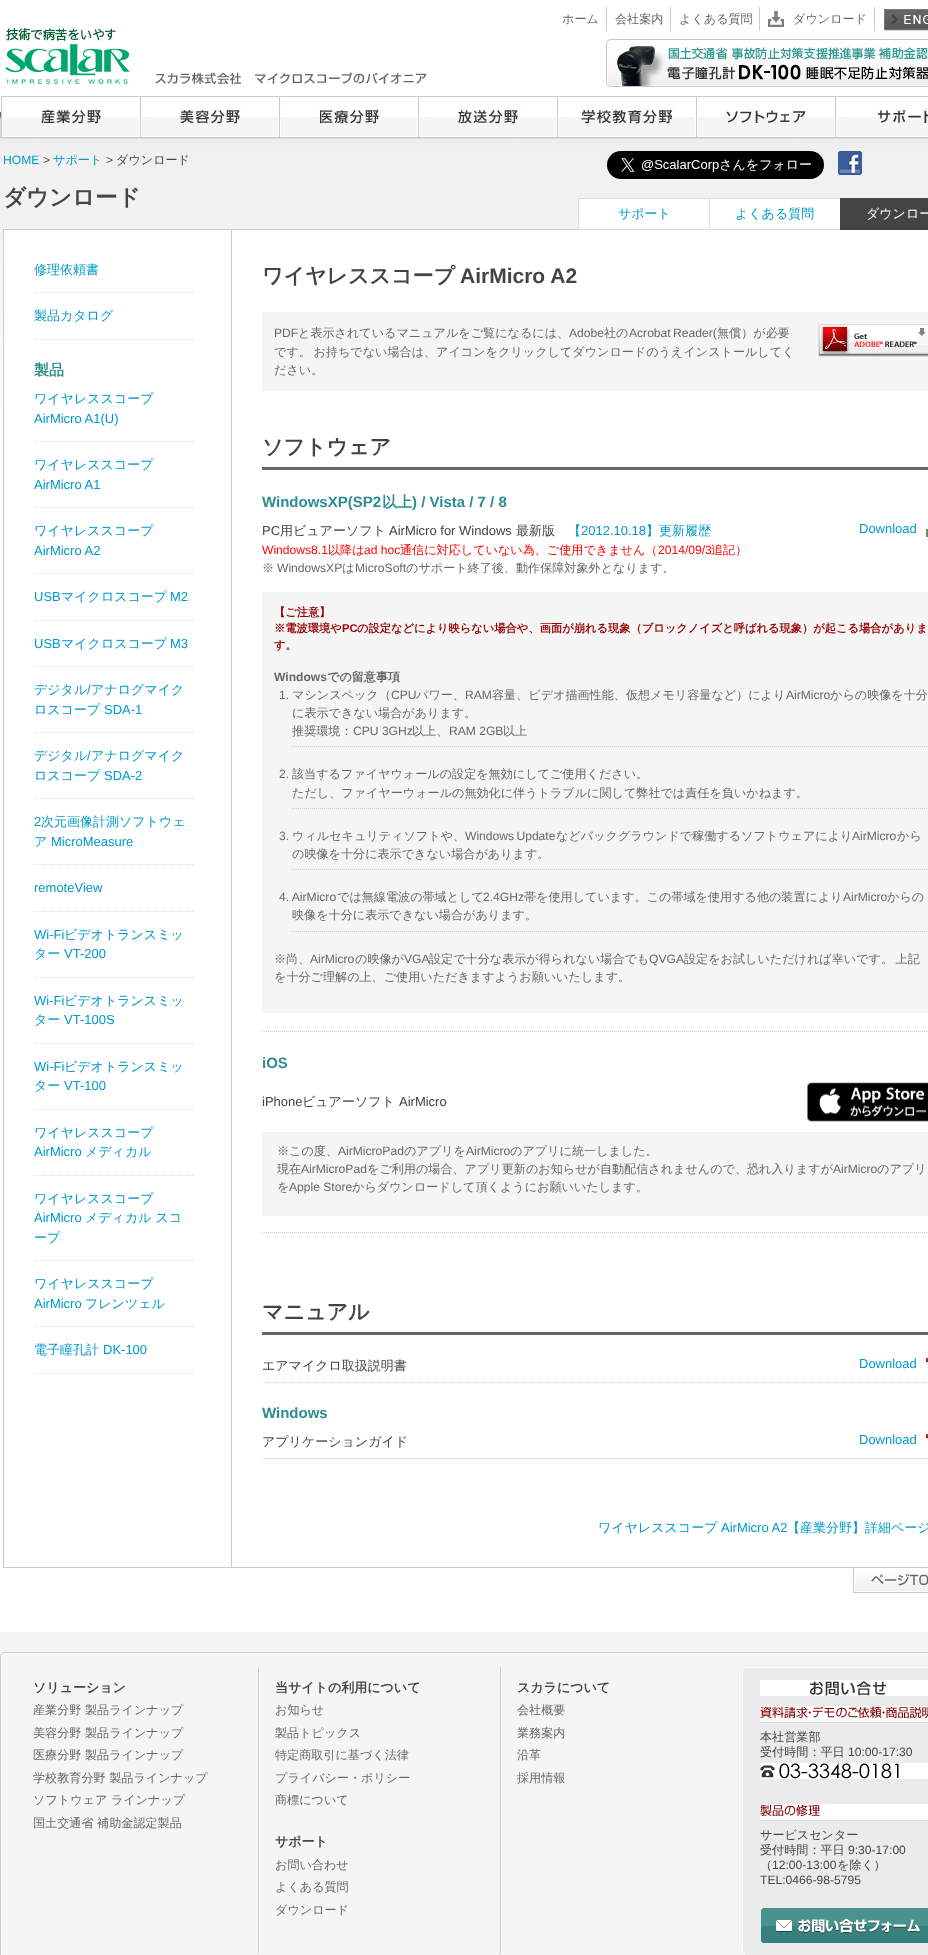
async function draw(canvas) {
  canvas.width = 928
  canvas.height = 1955
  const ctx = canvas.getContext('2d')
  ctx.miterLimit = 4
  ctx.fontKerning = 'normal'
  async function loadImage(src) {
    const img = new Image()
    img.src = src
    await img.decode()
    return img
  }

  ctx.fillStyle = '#f5f5f5'
  ctx.fillRect(0, 0, 928, 1955)
  ctx.fillStyle = '#fff'
  ctx.fillRect(0, 0, 928, 1632)
  ctx.drawImage(await loadImage('image0.png'), 0, 139, 928, 269)
  ctx.fillStyle = '#ccc'
  ctx.fillRect(606, 7, 1, 24)
  ctx.font = '500 12.1px WenQuanYi Zen Hei'
  ctx.fillStyle = '#666'
  ctx.fillText('ホーム', 562, 23)
  ctx.fillStyle = '#ccc'
  ctx.fillRect(670, 7, 1, 24)
  ctx.fillStyle = '#666'
  ctx.fillText('会社案内', 615, 23)
  ctx.fillStyle = '#ccc'
  ctx.fillRect(759, 7, 1, 24)
  ctx.fillStyle = '#666'
  ctx.fillText('よくある質問', 679, 23)
  ctx.fillStyle = '#ccc'
  ctx.fillRect(874, 7, 1, 24)
  ctx.drawImage(await loadImage('image1.png'), 768, 11, 16, 16)
  ctx.fillStyle = '#666'
  ctx.fillText('ダウンロード', 793, 23)
  ctx.drawImage(await loadImage('image2.png'), 884, 9, 44, 22)
  ctx.drawImage(await loadImage('image3.png'), 5, 28, 125, 56)
  ctx.drawImage(await loadImage('image4.png'), 155, 72, 272, 13)
  ctx.drawImage(await loadImage('image5.png'), 606, 39, 322, 48)
  ctx.drawImage(await loadImage('image6.png'), 0, 111, 928, 28)
  ctx.drawImage(await loadImage('image7.png'), 1, 96, 139, 42)
  ctx.drawImage(await loadImage('image8.png'), 140, 96, 139, 42)
  ctx.drawImage(await loadImage('image9.png'), 279, 96, 139, 42)
  ctx.drawImage(await loadImage('image10.png'), 418, 96, 139, 42)
  ctx.drawImage(await loadImage('image11.png'), 557, 96, 139, 42)
  ctx.drawImage(await loadImage('image12.png'), 696, 96, 139, 42)
  ctx.drawImage(await loadImage('image13.png'), 835, 96, 93, 42)
  ctx.font = '12.1px Liberation Sans'
  ctx.fillStyle = '#09c'
  ctx.fillText('HOME', 3, 164)
  ctx.fillStyle = '#444'
  ctx.fillText('>', 43, 164)
  ctx.font = '500 12.1px WenQuanYi Zen Hei'
  ctx.fillStyle = '#09c'
  ctx.fillText('サポート', 53, 164)
  ctx.font = '12.1px Liberation Sans'
  ctx.fillStyle = '#444'
  ctx.fillText('>', 106, 164)
  ctx.font = '500 12.1px WenQuanYi Zen Hei'
  ctx.fillText('ダウンロード', 116, 164)
  ctx.drawImage(await loadImage('image14.png'), 607, 151, 217, 28)
  ctx.drawImage(await loadImage('image15.png'), 838, 151, 24, 24)
  ctx.font = 'bold 22.5px WenQuanYi Zen Hei'
  ctx.fillText('ダウンロード', 3, 205)
  ctx.fillStyle = '#fff'
  ctx.fillRect(4, 230, 924, 178)
  ctx.strokeStyle = '#ccc'
  ctx.strokeRect(3.5, 229.5, 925, 1338)
  ctx.beginPath()
  ctx.rect(578.5, 198.5, 131, 31)
  ctx.fill()
  ctx.strokeStyle = '#ddd'
  ctx.stroke()
  ctx.font = '500 13px WenQuanYi Zen Hei'
  ctx.fillStyle = '#09c'
  ctx.fillText('サポート', 618, 218)
  ctx.fillStyle = '#fff'
  ctx.beginPath()
  ctx.rect(709.5, 198.5, 131, 31)
  ctx.fill()
  ctx.stroke()
  ctx.fillStyle = '#09c'
  ctx.fillText('よくある質問', 735, 218)
  ctx.fillStyle = '#444'
  ctx.fillRect(840, 198, 88, 32)
  ctx.fillStyle = '#fff'
  ctx.fillText('ダウンロー', 866, 218)
  ctx.beginPath()
  ctx.moveTo(34, 292.5)
  ctx.lineTo(194, 292.5)
  ctx.setLineDash([1, 1])
  ctx.stroke()
  ctx.fillStyle = '#09c'
  ctx.fillText('修理依頼書', 34, 274)
  ctx.beginPath()
  ctx.moveTo(34, 339.5)
  ctx.lineTo(194, 339.5)
  ctx.stroke()
  ctx.fillText('製品カタログ', 34, 320)
  ctx.font = 'bold 15px WenQuanYi Zen Hei'
  ctx.fillStyle = '#2f8d8d'
  ctx.fillText('製品', 34, 375)
  ctx.beginPath()
  ctx.moveTo(34, 441.5)
  ctx.lineTo(194, 441.5)
  ctx.stroke()
  ctx.font = '500 13px WenQuanYi Zen Hei'
  ctx.fillStyle = '#09c'
  ctx.fillText('ワイヤレススコープ', 34, 403)
  ctx.font = '13px Liberation Sans'
  ctx.fillText('AirMicro A1(U)', 34, 423)
  ctx.beginPath()
  ctx.moveTo(34, 507.5)
  ctx.lineTo(194, 507.5)
  ctx.stroke()
  ctx.font = '500 13px WenQuanYi Zen Hei'
  ctx.fillText('ワイヤレススコープ', 34, 469)
  ctx.font = '13px Liberation Sans'
  ctx.fillText('AirMicro A1', 34, 489)
  ctx.beginPath()
  ctx.moveTo(34, 573.5)
  ctx.lineTo(194, 573.5)
  ctx.stroke()
  ctx.font = '500 13px WenQuanYi Zen Hei'
  ctx.fillText('ワイヤレススコープ', 34, 535)
  ctx.font = '13px Liberation Sans'
  ctx.fillText('AirMicro A2', 34, 555)
  ctx.beginPath()
  ctx.moveTo(34, 620.5)
  ctx.lineTo(194, 620.5)
  ctx.stroke()
  ctx.fillText('USB', 34, 601)
  ctx.font = '500 13px WenQuanYi Zen Hei'
  ctx.fillText('マイクロスコープ', 61, 601)
  ctx.font = '13px Liberation Sans'
  ctx.fillText('M2', 170, 601)
  ctx.beginPath()
  ctx.moveTo(34, 666.5)
  ctx.lineTo(194, 666.5)
  ctx.stroke()
  ctx.fillText('USB', 34, 648)
  ctx.font = '500 13px WenQuanYi Zen Hei'
  ctx.fillText('マイクロスコープ', 61, 648)
  ctx.font = '13px Liberation Sans'
  ctx.fillText('M3', 170, 648)
  ctx.beginPath()
  ctx.moveTo(34, 732.5)
  ctx.lineTo(194, 732.5)
  ctx.stroke()
  ctx.font = '500 13px WenQuanYi Zen Hei'
  ctx.fillText('デジタル アナログマイク', 34, 694)
  ctx.font = '13px Liberation Sans'
  ctx.fillText('/', 87, 694)
  ctx.font = '500 13px WenQuanYi Zen Hei'
  ctx.fillText('ロスコープ', 34, 714)
  ctx.font = '13px Liberation Sans'
  ctx.fillText('SDA-1', 104, 714)
  ctx.beginPath()
  ctx.moveTo(34, 798.5)
  ctx.lineTo(194, 798.5)
  ctx.stroke()
  ctx.font = '500 13px WenQuanYi Zen Hei'
  ctx.fillText('デジタル アナログマイク', 34, 760)
  ctx.font = '13px Liberation Sans'
  ctx.fillText('/', 87, 760)
  ctx.font = '500 13px WenQuanYi Zen Hei'
  ctx.fillText('ロスコープ', 34, 780)
  ctx.font = '13px Liberation Sans'
  ctx.fillText('SDA-2', 104, 780)
  ctx.beginPath()
  ctx.moveTo(34, 864.5)
  ctx.lineTo(194, 864.5)
  ctx.stroke()
  ctx.fillText('2', 34, 826)
  ctx.font = '500 13px WenQuanYi Zen Hei'
  ctx.fillText('次元画像計測ソフトウェ', 41, 826)
  ctx.fillText('ア', 34, 846)
  ctx.font = '13px Liberation Sans'
  ctx.fillText('MicroMeasure', 51, 846)
  ctx.beginPath()
  ctx.moveTo(34, 911.5)
  ctx.lineTo(194, 911.5)
  ctx.stroke()
  ctx.fillText('remoteView', 34, 892)
  ctx.beginPath()
  ctx.moveTo(34, 977.5)
  ctx.lineTo(194, 977.5)
  ctx.stroke()
  ctx.fillText('Wi-Fi', 34, 939)
  ctx.font = '500 13px WenQuanYi Zen Hei'
  ctx.fillText('ビデオトランスミッ', 64, 939)
  ctx.fillText('ター', 34, 958)
  ctx.font = '13px Liberation Sans'
  ctx.fillText('VT-200', 64, 958)
  ctx.beginPath()
  ctx.moveTo(34, 1043.5)
  ctx.lineTo(194, 1043.5)
  ctx.stroke()
  ctx.fillText('Wi-Fi', 34, 1005)
  ctx.font = '500 13px WenQuanYi Zen Hei'
  ctx.fillText('ビデオトランスミッ', 64, 1005)
  ctx.fillText('ター', 34, 1024)
  ctx.font = '13px Liberation Sans'
  ctx.fillText('VT-100S', 64, 1024)
  ctx.beginPath()
  ctx.moveTo(34, 1109.5)
  ctx.lineTo(194, 1109.5)
  ctx.stroke()
  ctx.fillText('Wi-Fi', 34, 1071)
  ctx.font = '500 13px WenQuanYi Zen Hei'
  ctx.fillText('ビデオトランスミッ', 64, 1071)
  ctx.fillText('ター', 34, 1090)
  ctx.font = '13px Liberation Sans'
  ctx.fillText('VT-100', 64, 1090)
  ctx.beginPath()
  ctx.moveTo(34, 1175.5)
  ctx.lineTo(194, 1175.5)
  ctx.stroke()
  ctx.font = '500 13px WenQuanYi Zen Hei'
  ctx.fillText('ワイヤレススコープ', 34, 1137)
  ctx.font = '13px Liberation Sans'
  ctx.fillText('AirMicro', 34, 1156)
  ctx.font = '500 13px WenQuanYi Zen Hei'
  ctx.fillText('メディカル', 85, 1156)
  ctx.beginPath()
  ctx.moveTo(34, 1260.5)
  ctx.lineTo(194, 1260.5)
  ctx.stroke()
  ctx.fillText('ワイヤレススコープ', 34, 1203)
  ctx.font = '13px Liberation Sans'
  ctx.fillText('AirMicro', 34, 1222)
  ctx.font = '500 13px WenQuanYi Zen Hei'
  ctx.fillText('メディカル スコ', 85, 1222)
  ctx.fillText('ープ', 34, 1242)
  ctx.beginPath()
  ctx.moveTo(34, 1326.5)
  ctx.lineTo(194, 1326.5)
  ctx.stroke()
  ctx.fillText('ワイヤレススコープ', 34, 1288)
  ctx.font = '13px Liberation Sans'
  ctx.fillText('AirMicro', 34, 1308)
  ctx.font = '500 13px WenQuanYi Zen Hei'
  ctx.fillText('フレンツェル', 85, 1308)
  ctx.beginPath()
  ctx.moveTo(34, 1373.5)
  ctx.lineTo(194, 1373.5)
  ctx.stroke()
  ctx.fillText('電子瞳孔計', 34, 1354)
  ctx.font = '13px Liberation Sans'
  ctx.fillText('DK-100', 103, 1354)
  ctx.fillStyle = '#ccc'
  ctx.fillRect(231, 230, 1, 1337)
  ctx.font = 'bold 21px WenQuanYi Zen Hei'
  ctx.fillStyle = '#444'
  ctx.fillText('ワイヤレススコープ', 262, 283)
  ctx.font = 'bold 21px Liberation Sans'
  ctx.fillText('AirMicro A2', 460, 283)
  ctx.fillStyle = '#f5f5f5'
  ctx.fillRect(262, 312, 666, 79)
  ctx.font = '12.1px Liberation Sans'
  ctx.fillStyle = '#666'
  ctx.fillText('PDF', 274, 337)
  ctx.font = '500 12.1px WenQuanYi Zen Hei'
  ctx.fillText('と表示されているマニュアルをご覧になるには、', 298, 337)
  ctx.font = '12.1px Liberation Sans'
  ctx.fillText('Adobe', 569, 337)
  ctx.font = '500 12.1px WenQuanYi Zen Hei'
  ctx.fillText('社の', 604, 337)
  ctx.wordSpacing = '-1px'
  ctx.font = '12.1px Liberation Sans'
  ctx.fillText('Acrobat Reader(', 629, 337)
  ctx.wordSpacing = '0px'
  ctx.font = '500 12.1px WenQuanYi Zen Hei'
  ctx.fillText('無償）が必要', 717, 337)
  ctx.drawImage(await loadImage('image16.png'), 818, 324, 110, 33)
  ctx.wordSpacing = '-1px'
  ctx.fillText('です。 お持ちでない場合は、アイコンをクリックしてダウンロードのうえインストールしてく', 274, 356)
  ctx.wordSpacing = '0px'
  ctx.fillText('ださい。', 274, 374)
  ctx.fillRect(262, 467, 666, 3)
  ctx.font = 'bold 21px WenQuanYi Zen Hei'
  ctx.fillStyle = '#444'
  ctx.fillText('ソフトウェア', 262, 454)
  ctx.font = 'bold 15px Liberation Sans'
  ctx.fillStyle = '#2f8d8d'
  ctx.fillText('WindowsXP(SP2', 262, 507)
  ctx.font = 'bold 15px WenQuanYi Zen Hei'
  ctx.fillText('以上', 382, 507)
  ctx.font = 'bold 15px Liberation Sans'
  ctx.fillText(') / Vista / 7 / 8', 412, 507)
  ctx.beginPath()
  ctx.moveTo(262, 1031.5)
  ctx.lineTo(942, 1031.5)
  ctx.strokeStyle = '#ccc'
  ctx.stroke()
  ctx.font = '13px Liberation Sans'
  ctx.fillStyle = '#444'
  ctx.fillText('PC', 262, 535)
  ctx.font = '500 13px WenQuanYi Zen Hei'
  ctx.fillText('用ビュアーソフト', 280, 535)
  ctx.font = '13px Liberation Sans'
  ctx.fillText('AirMicro for Windows', 389, 535)
  ctx.font = '500 13px WenQuanYi Zen Hei'
  ctx.fillText('最新版', 516, 535)
  ctx.fillStyle = '#09c'
  ctx.fillText('【', 568, 535)
  ctx.font = '13px Liberation Sans'
  ctx.fillText('2012.10.18', 581, 535)
  ctx.font = '500 13px WenQuanYi Zen Hei'
  ctx.fillText('】更新履歴', 646, 535)
  ctx.fillStyle = '#7d7d7d'
  ctx.fillRect(926, 529, 2, 8)
  ctx.font = '13px Liberation Sans'
  ctx.fillStyle = '#09c'
  ctx.fillText('Download', 859, 533)
  ctx.font = '12.1px Liberation Sans'
  ctx.fillStyle = '#f00'
  ctx.fillText('Windows8.1', 262, 554)
  ctx.font = '500 12.1px WenQuanYi Zen Hei'
  ctx.fillText('以降は', 328, 554)
  ctx.font = '12.1px Liberation Sans'
  ctx.fillText('ad hoc', 364, 554)
  ctx.font = '500 12.1px WenQuanYi Zen Hei'
  ctx.fillText('通信に対応していない為、ご使用できません（', 400, 554)
  ctx.font = '12.1px Liberation Sans'
  ctx.fillText('2014/09/3', 658, 554)
  ctx.font = '500 12.1px WenQuanYi Zen Hei'
  ctx.fillText('追記）', 711, 554)
  ctx.fillStyle = '#666'
  ctx.fillText('※', 262, 572)
  ctx.font = '12.1px Liberation Sans'
  ctx.fillText('WindowsXP', 277, 572)
  ctx.font = '500 12.1px WenQuanYi Zen Hei'
  ctx.fillText('は', 342, 572)
  ctx.font = '12.1px Liberation Sans'
  ctx.fillText('MicroSoft', 355, 572)
  ctx.font = '500 12.1px WenQuanYi Zen Hei'
  ctx.fillText('のサポート終了後、動作保障対象外となります。', 406, 572)
  ctx.fillStyle = '#f5f5f5'
  ctx.fillRect(262, 592, 666, 421)
  ctx.font = 'bold 11.25px WenQuanYi Zen Hei'
  ctx.fillStyle = '#900'
  ctx.fillText('【ご注意】', 274, 616)
  ctx.fillText('※電波環境や', 274, 632)
  ctx.font = 'bold 11.25px Liberation Sans'
  ctx.fillText('PC', 342, 632)
  ctx.font = 'bold 11.25px WenQuanYi Zen Hei'
  ctx.fillText('の設定などにより映らない場合や、画面が崩れる現象（ブロックノイズと呼ばれる現象）が起こる場合がありま', 357, 632)
  ctx.fillText('す。', 274, 649)
  ctx.font = 'bold 12.1px Liberation Sans'
  ctx.fillStyle = '#666'
  ctx.fillText('Windows', 274, 681)
  ctx.font = 'bold 12.1px WenQuanYi Zen Hei'
  ctx.fillText('での留意事項', 327, 681)
  ctx.beginPath()
  ctx.moveTo(292, 746.5)
  ctx.lineTo(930, 746.5)
  ctx.stroke()
  ctx.font = '12.1px Liberation Sans'
  ctx.fillText('1.', 279, 699)
  ctx.font = '500 12.1px WenQuanYi Zen Hei'
  ctx.fillText('マシンスペック（', 292, 699)
  ctx.font = '12.1px Liberation Sans'
  ctx.fillText('CPU', 391, 699)
  ctx.font = '500 12.1px WenQuanYi Zen Hei'
  ctx.fillText('パワー、', 416, 699)
  ctx.font = '12.1px Liberation Sans'
  ctx.fillText('RAM', 465, 699)
  ctx.font = '500 12.1px WenQuanYi Zen Hei'
  ctx.fillText('容量、ビデオ描画性能、仮想メモリ容量など）により', 492, 699)
  ctx.font = '12.1px Liberation Sans'
  ctx.fillText('AirMicro', 786, 699)
  ctx.font = '500 12.1px WenQuanYi Zen Hei'
  ctx.fillText('からの映像を十分', 830, 699)
  ctx.fillText('に表示できない場合があります。', 292, 717)
  ctx.fillText('推奨環境：', 292, 735)
  ctx.font = '12.1px Liberation Sans'
  ctx.fillText('CPU 3GHz', 353, 735)
  ctx.font = '500 12.1px WenQuanYi Zen Hei'
  ctx.fillText('以上、', 412, 735)
  ctx.font = '12.1px Liberation Sans'
  ctx.fillText('RAM 2GB', 449, 735)
  ctx.font = '500 12.1px WenQuanYi Zen Hei'
  ctx.fillText('以上', 503, 735)
  ctx.beginPath()
  ctx.moveTo(292, 808.5)
  ctx.lineTo(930, 808.5)
  ctx.stroke()
  ctx.font = '12.1px Liberation Sans'
  ctx.fillText('2.', 279, 778)
  ctx.font = '500 12.1px WenQuanYi Zen Hei'
  ctx.fillText('該当するファイヤウォールの設定を無効にしてご使用ください。', 292, 778)
  ctx.fillText('ただし、ファイヤーウォールの無効化に伴うトラブルに関して弊社では責任を負いかねます。', 292, 797)
  ctx.beginPath()
  ctx.moveTo(292, 869.5)
  ctx.lineTo(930, 869.5)
  ctx.stroke()
  ctx.font = '12.1px Liberation Sans'
  ctx.fillText('3.', 279, 840)
  ctx.font = '500 12.1px WenQuanYi Zen Hei'
  ctx.fillText('ウィルセキュリティソフトや、', 292, 840)
  ctx.wordSpacing = '-1px'
  ctx.font = '12.1px Liberation Sans'
  ctx.fillText('Windows Update', 465, 840)
  ctx.wordSpacing = '0px'
  ctx.font = '500 12.1px WenQuanYi Zen Hei'
  ctx.fillText('などバックグラウンドで稼働するソフトウェアにより', 556, 840)
  ctx.font = '12.1px Liberation Sans'
  ctx.fillText('AirMicro', 852, 840)
  ctx.font = '500 12.1px WenQuanYi Zen Hei'
  ctx.fillText('から', 897, 840)
  ctx.fillText('の映像を十分に表示できない場合があります。', 292, 858)
  ctx.beginPath()
  ctx.moveTo(292, 931.5)
  ctx.lineTo(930, 931.5)
  ctx.stroke()
  ctx.font = '12.1px Liberation Sans'
  ctx.fillText('4. AirMicro', 279, 901)
  ctx.font = '500 12.1px WenQuanYi Zen Hei'
  ctx.fillText('では無線電波の帯域として', 337, 901)
  ctx.font = '12.1px Liberation Sans'
  ctx.fillText('2.4GHz', 483, 901)
  ctx.font = '500 12.1px WenQuanYi Zen Hei'
  ctx.fillText('帯を使用しています。この帯域を使用する他の装置により', 524, 901)
  ctx.font = '12.1px Liberation Sans'
  ctx.fillText('AirMicro', 843, 901)
  ctx.font = '500 12.1px WenQuanYi Zen Hei'
  ctx.fillText('からの', 887, 901)
  ctx.fillText('映像を十分に表示できない場合があります。', 292, 919)
  ctx.fillText('※尚、', 274, 963)
  ctx.font = '12.1px Liberation Sans'
  ctx.fillText('AirMicro', 310, 963)
  ctx.font = '500 12.1px WenQuanYi Zen Hei'
  ctx.fillText('の映像が', 355, 963)
  ctx.font = '12.1px Liberation Sans'
  ctx.fillText('VGA', 404, 963)
  ctx.font = '500 12.1px WenQuanYi Zen Hei'
  ctx.fillText('設定で十分な表示が得られない場合でも', 429, 963)
  ctx.font = '12.1px Liberation Sans'
  ctx.fillText('QVGA', 649, 963)
  ctx.wordSpacing = '-1px'
  ctx.font = '500 12.1px WenQuanYi Zen Hei'
  ctx.fillText('設定をお試しいただければ幸いです。 上記', 684, 963)
  ctx.wordSpacing = '0px'
  ctx.fillText('を十分ご理解の上、ご使用いただきますようお願いいたします。', 274, 981)
  ctx.font = 'bold 15px Liberation Sans'
  ctx.fillStyle = '#2f8d8d'
  ctx.fillText('iOS', 262, 1068)
  ctx.beginPath()
  ctx.moveTo(262, 1232.5)
  ctx.lineTo(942, 1232.5)
  ctx.stroke()
  ctx.font = '13px Liberation Sans'
  ctx.fillStyle = '#444'
  ctx.fillText('iPhone', 262, 1106)
  ctx.font = '500 13px WenQuanYi Zen Hei'
  ctx.fillText('ビュアーソフト', 302, 1106)
  ctx.font = '13px Liberation Sans'
  ctx.fillText('AirMicro', 399, 1106)
  ctx.drawImage(await loadImage('image17.png'), 807, 1082, 121, 40)
  ctx.fillStyle = '#f5f5f5'
  ctx.fillRect(262, 1132, 666, 84)
  ctx.font = '500 12.1px WenQuanYi Zen Hei'
  ctx.fillStyle = '#666'
  ctx.fillText('※この度、', 277, 1155)
  ctx.font = '12.1px Liberation Sans'
  ctx.fillText('AirMicroPad', 338, 1155)
  ctx.font = '500 12.1px WenQuanYi Zen Hei'
  ctx.fillText('のアプリを', 404, 1155)
  ctx.font = '12.1px Liberation Sans'
  ctx.fillText('AirMicro', 466, 1155)
  ctx.font = '500 12.1px WenQuanYi Zen Hei'
  ctx.fillText('のアプリに統一しました。', 510, 1155)
  ctx.fillText('現在', 277, 1173)
  ctx.font = '12.1px Liberation Sans'
  ctx.fillText('AirMicroPad', 301, 1173)
  ctx.font = '500 12.1px WenQuanYi Zen Hei'
  ctx.fillText('をご利用の場合、アプリ更新のお知らせが自動配信されませんので、恐れ入りますが', 367, 1173)
  ctx.font = '12.1px Liberation Sans'
  ctx.fillText('AirMicro', 833, 1173)
  ctx.font = '500 12.1px WenQuanYi Zen Hei'
  ctx.fillText('のアプリ', 877, 1173)
  ctx.fillText('を', 277, 1191)
  ctx.font = '12.1px Liberation Sans'
  ctx.fillText('Apple Store', 289, 1191)
  ctx.font = '500 12.1px WenQuanYi Zen Hei'
  ctx.fillText('からダウンロードして頂くようにお願いいたします。', 352, 1191)
  ctx.fillRect(262, 1332, 666, 3)
  ctx.font = 'bold 21px WenQuanYi Zen Hei'
  ctx.fillStyle = '#444'
  ctx.fillText('マニュアル', 262, 1319)
  ctx.beginPath()
  ctx.moveTo(262, 1382.5)
  ctx.lineTo(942, 1382.5)
  ctx.stroke()
  ctx.font = '500 13px WenQuanYi Zen Hei'
  ctx.fillText('エアマイクロ取扱説明書', 262, 1370)
  ctx.drawImage(await loadImage('image18.png'), 926, 1358, 2, 6)
  ctx.font = '13px Liberation Sans'
  ctx.fillStyle = '#09c'
  ctx.fillText('Download', 859, 1368)
  ctx.font = 'bold 15px Liberation Sans'
  ctx.fillStyle = '#2f8d8d'
  ctx.fillText('Windows', 262, 1418)
  ctx.beginPath()
  ctx.moveTo(262, 1458.5)
  ctx.lineTo(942, 1458.5)
  ctx.stroke()
  ctx.font = '500 13px WenQuanYi Zen Hei'
  ctx.fillStyle = '#444'
  ctx.fillText('アプリケーションガイド', 262, 1446)
  ctx.drawImage(await loadImage('image18.png'), 926, 1434, 2, 6)
  ctx.font = '13px Liberation Sans'
  ctx.fillStyle = '#09c'
  ctx.fillText('Download', 859, 1444)
  ctx.font = '500 13px WenQuanYi Zen Hei'
  ctx.fillText('ワイヤレススコープ', 598, 1532)
  ctx.font = '13px Liberation Sans'
  ctx.fillText('AirMicro A2', 721, 1532)
  ctx.font = '500 13px WenQuanYi Zen Hei'
  ctx.fillText('【産業分野】詳細ページ', 787, 1532)
  ctx.drawImage(await loadImage('image19.png'), 853, 1568, 75, 25)
  ctx.beginPath()
  ctx.roundRect(0.5, 1652.5, 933, 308, 4.5)
  ctx.setLineDash([])
  ctx.stroke()
  ctx.beginPath()
  ctx.roundRect(1.5, 1653.5, 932, 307, 4.5)
  ctx.strokeStyle = '#fff'
  ctx.stroke()
  ctx.fillStyle = '#ccc'
  ctx.fillRect(258, 1667, 1, 287)
  ctx.font = 'bold 13px WenQuanYi Zen Hei'
  ctx.fillStyle = '#444'
  ctx.fillText('ソリューション', 33, 1692)
  ctx.font = '500 12.1px WenQuanYi Zen Hei'
  ctx.fillStyle = '#666'
  ctx.fillText('産業分野 製品ラインナップ', 33, 1714)
  ctx.fillText('美容分野 製品ラインナップ', 33, 1737)
  ctx.fillText('医療分野 製品ラインナップ', 33, 1759)
  ctx.fillText('学校教育分野 製品ラインナップ', 33, 1782)
  ctx.fillText('ソフトウェア ラインナップ', 33, 1804)
  ctx.fillText('国土交通省 補助金認定製品', 33, 1827)
  ctx.fillStyle = '#ccc'
  ctx.fillRect(500, 1667, 1, 287)
  ctx.fillStyle = '#fff'
  ctx.fillRect(259, 1667, 1, 287)
  ctx.font = 'bold 13px WenQuanYi Zen Hei'
  ctx.fillStyle = '#444'
  ctx.fillText('当サイトの利用について', 275, 1692)
  ctx.font = '500 12.1px WenQuanYi Zen Hei'
  ctx.fillStyle = '#666'
  ctx.fillText('お知らせ', 275, 1714)
  ctx.fillText('製品トピックス', 275, 1737)
  ctx.fillText('特定商取引に基づく法律', 275, 1759)
  ctx.fillText('プライバシー・ポリシー', 275, 1782)
  ctx.fillText('商標について', 275, 1804)
  ctx.font = 'bold 13px WenQuanYi Zen Hei'
  ctx.fillStyle = '#444'
  ctx.fillText('サポート', 275, 1846)
  ctx.font = '500 12.1px WenQuanYi Zen Hei'
  ctx.fillStyle = '#666'
  ctx.fillText('お問い合わせ', 275, 1869)
  ctx.fillText('よくある質問', 275, 1891)
  ctx.fillText('ダウンロード', 275, 1914)
  ctx.fillStyle = '#fff'
  ctx.fillRect(501, 1667, 1, 287)
  ctx.font = 'bold 13px WenQuanYi Zen Hei'
  ctx.fillStyle = '#444'
  ctx.fillText('スカラについて', 517, 1692)
  ctx.font = '500 12.1px WenQuanYi Zen Hei'
  ctx.fillStyle = '#666'
  ctx.fillText('会社概要', 517, 1714)
  ctx.fillText('業務案内', 517, 1737)
  ctx.fillText('沿革', 517, 1759)
  ctx.fillText('採用情報', 517, 1782)
  ctx.fillStyle = '#ebebeb'
  ctx.beginPath()
  ctx.roundRect(742.5, 1667.5, 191, 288, 4.5)
  ctx.fill()
  ctx.stroke()
  ctx.drawImage(await loadImage('image20.png'), 760, 1680, 168, 16)
  ctx.drawImage(await loadImage('image21.png'), 760, 1706, 168, 16)
  ctx.fillStyle = '#ddd'
  ctx.fillRect(760, 1722, 168, 1)
  ctx.fillStyle = '#444'
  ctx.fillText('本社営業部', 760, 1741)
  ctx.fillText('受付時間：平日', 760, 1756)
  ctx.font = '12.1px Liberation Sans'
  ctx.fillText('10:00-17:30', 848, 1756)
  ctx.drawImage(await loadImage('image22.png'), 760, 1763, 168, 16)
  ctx.drawImage(await loadImage('image23.png'), 760, 1804, 168, 16)
  ctx.fillStyle = '#ddd'
  ctx.fillRect(760, 1820, 168, 1)
  ctx.font = '500 12.1px WenQuanYi Zen Hei'
  ctx.fillStyle = '#444'
  ctx.fillText('サービスセンター', 760, 1839)
  ctx.fillText('受付時間：平日', 760, 1854)
  ctx.font = '12.1px Liberation Sans'
  ctx.fillText('9:30-17:00', 848, 1854)
  ctx.font = '500 12.1px WenQuanYi Zen Hei'
  ctx.fillText('（', 760, 1869)
  ctx.font = '12.1px Liberation Sans'
  ctx.fillText('12:00-13:00', 772, 1869)
  ctx.font = '500 12.1px WenQuanYi Zen Hei'
  ctx.fillText('を除く）', 837, 1869)
  ctx.font = '12.1px Liberation Sans'
  ctx.fillText('TEL:0466-98-5795', 760, 1884)
  ctx.drawImage(await loadImage('image24.png'), 761, 1908, 167, 35)
}

draw(document.querySelector('canvas'))
